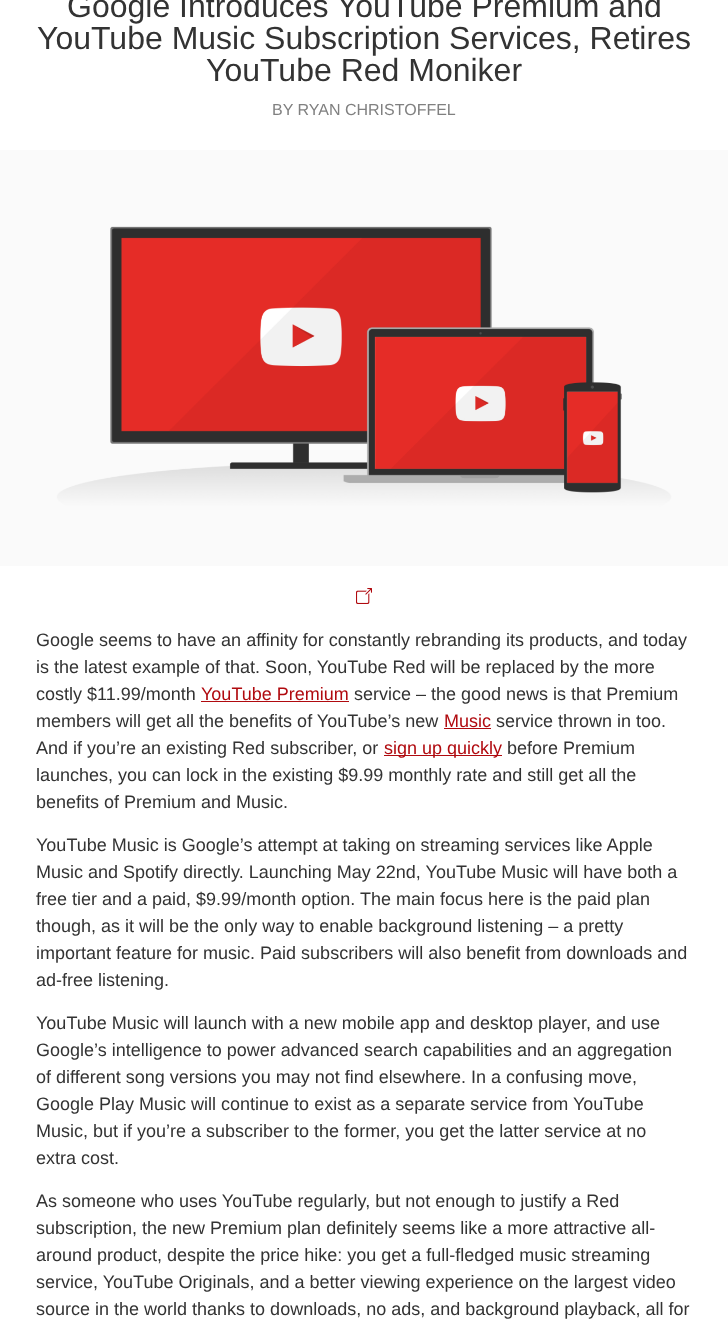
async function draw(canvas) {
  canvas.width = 728
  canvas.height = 1330
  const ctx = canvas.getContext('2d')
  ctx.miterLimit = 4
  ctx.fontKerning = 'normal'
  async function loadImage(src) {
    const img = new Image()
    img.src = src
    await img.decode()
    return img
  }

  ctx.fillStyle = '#fff'
  ctx.fillRect(0, 0, 728, 1330)
  ctx.font = '32px Liberation Sans'
  ctx.fillStyle = '#333'
  ctx.fillText('Google Introduces YouTube Premium and', 67, 17)
  ctx.fillText('YouTube Music Subscription Services, Retires', 37, 49)
  ctx.fillText('YouTube Red Moniker', 206, 81)
  ctx.font = '16px Liberation Sans'
  ctx.fillStyle = '#808080'
  ctx.fillText('BY RYAN CHRISTOFFEL', 272, 115)
  ctx.drawImage(await loadImage('image0.png'), 0, 150, 728, 416)
  ctx.drawImage(await loadImage('image1.png'), 356, 588, 16, 16)
  ctx.font = '18px Liberation Sans'
  ctx.fillStyle = '#333'
  ctx.fillText('Google seems to have an affinity for constantly rebranding its products, and today', 36, 646)
  ctx.fillText('is the latest example of that. Soon, YouTube Red will be replaced by the more', 36, 673)
  ctx.fillText('costly $11.99/month', 36, 700)
  ctx.fillStyle = '#b00a0f'
  ctx.fillText('YouTube Premium', 201, 700)
  ctx.fillRect(201, 701, 148, 1)
  ctx.fillStyle = '#333'
  ctx.fillText('service – the good news is that Premium', 354, 700)
  ctx.fillText('members will get all the benefits of YouTube’s new', 36, 727)
  ctx.fillStyle = '#b00a0f'
  ctx.fillText('Music', 444, 727)
  ctx.fillRect(444, 728, 47, 1)
  ctx.fillStyle = '#333'
  ctx.fillText('service thrown in too.', 496, 727)
  ctx.fillText('And if you’re an existing Red subscriber, or', 36, 754)
  ctx.fillStyle = '#b00a0f'
  ctx.fillRect(384, 755, 118, 1)
  ctx.fillText('sign up quickly', 384, 754)
  ctx.fillStyle = '#333'
  ctx.fillText('before Premium', 507, 754)
  ctx.fillText('launches, you can lock in the existing $9.99 monthly rate and still get all the', 36, 781)
  ctx.fillText('benefits of Premium and Music.', 36, 808)
  ctx.fillText('YouTube Music is Google’s attempt at taking on streaming services like Apple', 36, 851)
  ctx.fillText('Music and Spotify directly. Launching May 22nd, YouTube Music will have both a', 36, 878)
  ctx.fillText('free tier and a paid, $9.99/month option. The main focus here is the paid plan', 36, 905)
  ctx.fillText('though, as it will be the only way to enable background listening – a pretty', 36, 932)
  ctx.fillText('important feature for music. Paid subscribers will also benefit from downloads and', 36, 959)
  ctx.fillText('ad-free listening.', 36, 986)
  ctx.fillText('YouTube Music will launch with a new mobile app and desktop player, and use', 36, 1029)
  ctx.fillText('Google’s intelligence to power advanced search capabilities and an aggregation', 36, 1056)
  ctx.fillText('of different song versions you may not find elsewhere. In a confusing move,', 36, 1083)
  ctx.fillText('Google Play Music will continue to exist as a separate service from YouTube', 36, 1110)
  ctx.fillText('Music, but if you’re a subscriber to the former, you get the latter service at no', 36, 1137)
  ctx.fillText('extra cost.', 36, 1164)
  ctx.fillText('As someone who uses YouTube regularly, but not enough to justify a Red', 36, 1207)
  ctx.fillText('subscription, the new Premium plan definitely seems like a more attractive all-', 36, 1234)
  ctx.fillText('around product, despite the price hike: you get a full-fledged music streaming', 36, 1261)
  ctx.fillText('service, YouTube Originals, and a better viewing experience on the largest video', 36, 1288)
  ctx.fillText('source in the world thanks to downloads, no ads, and background playback, all for', 36, 1315)
}

draw(document.querySelector('canvas'))
